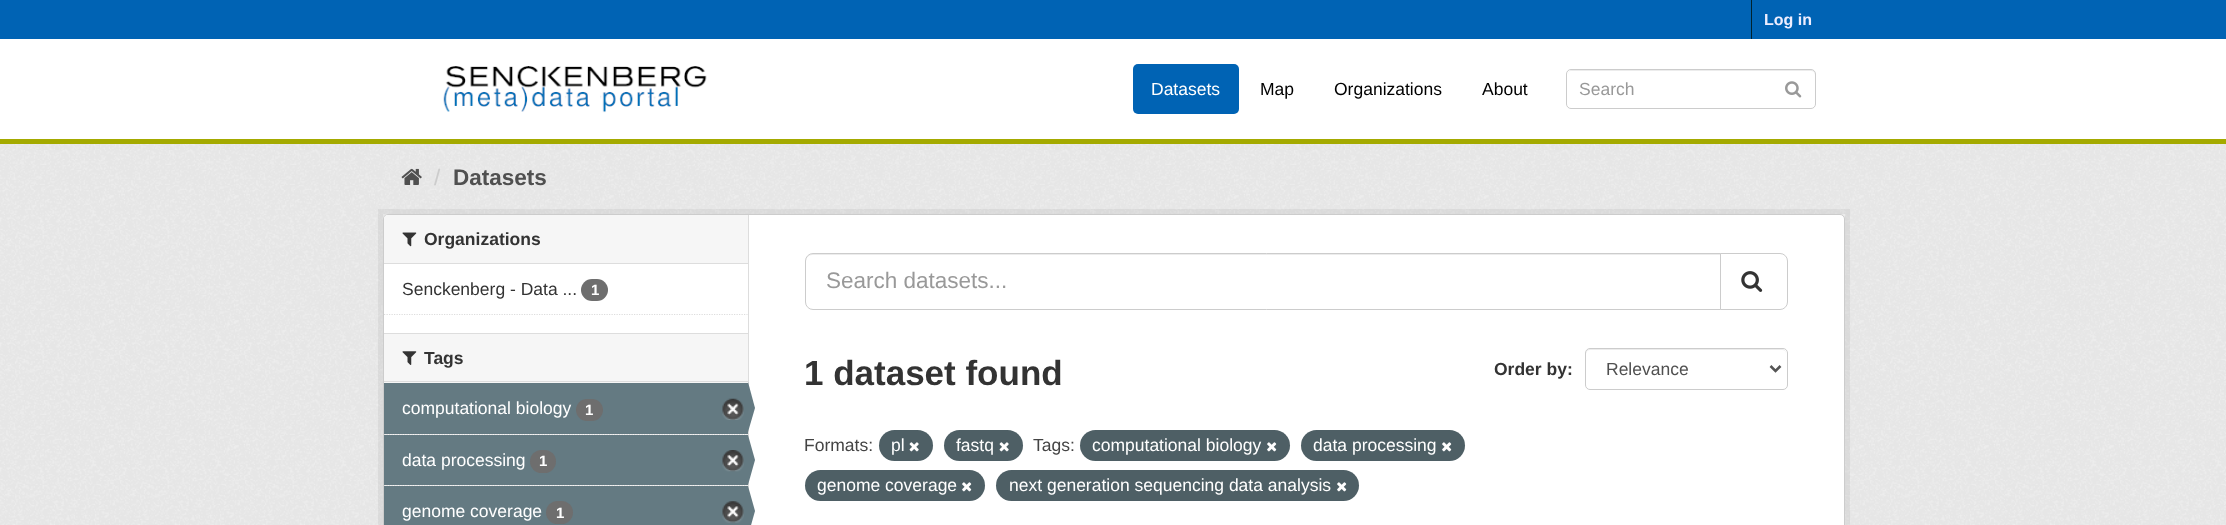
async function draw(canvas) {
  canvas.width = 2226
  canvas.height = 525
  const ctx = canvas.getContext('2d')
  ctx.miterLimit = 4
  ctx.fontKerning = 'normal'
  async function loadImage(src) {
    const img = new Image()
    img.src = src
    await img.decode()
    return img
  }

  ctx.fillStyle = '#fff'
  ctx.fillRect(0, 0, 2226, 525)
  ctx.fillStyle = '#0063b4'
  ctx.fillRect(0, 0, 2226, 39)
  ctx.fillStyle = '#00232e'
  ctx.fillRect(1751, 0, 1, 39)
  ctx.font = 'bold 16px Liberation Sans'
  ctx.fillStyle = '#eef'
  ctx.fillText('Log in', 1764, 25)
  ctx.fillStyle = '#a4aa00'
  ctx.fillRect(0, 139, 2226, 5)
  ctx.drawImage(await loadImage('image0.png'), 443, 66, 264, 47)
  ctx.fillStyle = '#0063b4'
  ctx.beginPath()
  ctx.roundRect(1133, 64, 106, 50, 5)
  ctx.fill()
  ctx.font = '17.5px Liberation Sans'
  ctx.fillStyle = '#fff'
  ctx.fillText('Datasets', 1151, 95)
  ctx.fillStyle = '#000'
  ctx.fillText('Map', 1260, 95)
  ctx.fillText('Organizations', 1334, 95)
  ctx.fillText('About', 1482, 95)
  ctx.fillStyle = '#ececec'
  ctx.beginPath()
  ctx.moveTo(1571, 71)
  ctx.lineTo(1811, 71)
  ctx.bezierCurveTo(1813, 71, 1815, 73, 1815, 75)
  ctx.lineTo(1815, 74)
  ctx.bezierCurveTo(1815, 72, 1813, 70, 1811, 70)
  ctx.lineTo(1572, 70)
  ctx.bezierCurveTo(1570, 70, 1568, 72, 1568, 74)
  ctx.lineTo(1568, 75)
  ctx.bezierCurveTo(1568, 73, 1569, 71, 1571, 71)
  ctx.closePath()
  ctx.fill()
  ctx.beginPath()
  ctx.roundRect(1566.5, 69.5, 249, 39, 4.5)
  ctx.strokeStyle = '#ccc'
  ctx.stroke()
  ctx.fillStyle = '#999'
  ctx.fillText('Search', 1579, 95)
  ctx.drawImage(await loadImage('image1.png'), 1785, 81, 17, 17)
  ctx.fillStyle = '#eee'
  ctx.fillRect(0, 144, 2226, 381)
  ctx.drawImage(await loadImage('image2.png'), 0, 144, 2226, 381)
  ctx.drawImage(await loadImage('image3.png'), 401, 168, 21, 17)
  ctx.font = '22.5px Liberation Sans'
  ctx.fillStyle = '#ccc'
  ctx.fillText('/', 434, 185)
  ctx.font = 'bold 22.5px Liberation Sans'
  ctx.fillStyle = '#505050'
  ctx.fillText('Datasets', 453, 185)
  ctx.strokeStyle = '#0000000d'
  ctx.lineWidth = 5
  ctx.strokeRect(380.5, 211.5, 1467, 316)
  ctx.fillStyle = '#fff'
  ctx.beginPath()
  ctx.roundRect(383.5, 214.5, 1461, 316, 4.5)
  ctx.fill()
  ctx.strokeStyle = '#ccc'
  ctx.lineWidth = 1
  ctx.stroke()
  ctx.fillStyle = '#f6f6f6'
  ctx.beginPath()
  ctx.roundRect(384, 215, 364, 49, [4, 0, 0, 0])
  ctx.fill()
  ctx.fillStyle = '#ddd'
  ctx.fillRect(384, 263, 364, 1)
  ctx.drawImage(await loadImage('image4.png'), 402, 232, 15, 15)
  ctx.font = 'bold 17.5px Liberation Sans'
  ctx.fillStyle = '#333'
  ctx.fillText('Organizations', 424, 245)
  ctx.font = '17.5px Liberation Sans'
  ctx.fillText('Senckenberg - Data ...', 402, 295)
  ctx.fillStyle = '#6e6e6e'
  ctx.beginPath()
  ctx.roundRect(581, 279, 27, 22, 11)
  ctx.fill()
  ctx.font = 'bold 15px Liberation Sans'
  ctx.fillStyle = '#fff'
  ctx.fillText('1', 591, 295)
  ctx.beginPath()
  ctx.moveTo(384, 314.5)
  ctx.lineTo(747.5, 314.5)
  ctx.strokeStyle = '#ddd'
  ctx.lineWidth = 1.2
  ctx.setLineDash([1.25, 1.25])
  ctx.stroke()
  ctx.fillStyle = '#f6f6f6'
  ctx.fillRect(384, 334, 364, 49)
  ctx.fillStyle = '#ddd'
  ctx.fillRect(384, 333, 364, 1)
  ctx.fillRect(384, 381, 364, 1)
  ctx.drawImage(await loadImage('image5.png'), 402, 351, 15, 14)
  ctx.font = 'bold 17.5px Liberation Sans'
  ctx.fillStyle = '#333'
  ctx.fillText('Tags', 424, 364)
  ctx.fillStyle = '#f6f6f6'
  ctx.fillRect(385, 434, 363, 1)
  ctx.beginPath()
  ctx.moveTo(384, 434.5)
  ctx.lineTo(747.5, 434.5)
  ctx.stroke()
  ctx.fillStyle = '#647a82'
  ctx.fillRect(384, 383, 364, 51)
  ctx.font = '17.5px Liberation Sans'
  ctx.fillStyle = '#fff'
  ctx.fillText('computational biology', 402, 414)
  ctx.fillStyle = '#6e6e6e'
  ctx.beginPath()
  ctx.roundRect(576, 399, 27, 22, 11)
  ctx.fill()
  ctx.font = 'bold 15px Liberation Sans'
  ctx.fillStyle = '#fff'
  ctx.fillText('1', 585, 415)
  ctx.drawImage(await loadImage('image6.png'), 722, 398, 22, 22)
  ctx.fillStyle = '#ddd'
  ctx.fillRect(748, 215, 1, 275)
  ctx.fillStyle = '#647a82'
  ctx.beginPath()
  ctx.moveTo(748, 432)
  ctx.lineTo(748, 382)
  ctx.lineTo(755, 408)
  ctx.closePath()
  ctx.fill()
  ctx.fillStyle = '#f6f6f6'
  ctx.fillRect(385, 485, 363, 1)
  ctx.beginPath()
  ctx.moveTo(384, 485.5)
  ctx.lineTo(747.5, 485.5)
  ctx.stroke()
  ctx.fillStyle = '#647a82'
  ctx.fillRect(384, 435, 364, 50)
  ctx.font = '17.5px Liberation Sans'
  ctx.fillStyle = '#fff'
  ctx.fillText('data processing', 402, 466)
  ctx.fillStyle = '#6e6e6e'
  ctx.beginPath()
  ctx.roundRect(530, 450, 26, 23, 11.5)
  ctx.fill()
  ctx.font = 'bold 15px Liberation Sans'
  ctx.fillStyle = '#fff'
  ctx.fillText('1', 539, 466)
  ctx.drawImage(await loadImage('image7.png'), 722, 450, 22, 22)
  ctx.fillStyle = '#647a82'
  ctx.beginPath()
  ctx.moveTo(748, 485)
  ctx.lineTo(748, 435)
  ctx.lineTo(755, 460)
  ctx.closePath()
  ctx.fill()
  ctx.fillRect(384, 486, 364, 39)
  ctx.font = '17.5px Liberation Sans'
  ctx.fillStyle = '#fff'
  ctx.fillText('genome coverage', 402, 517)
  ctx.fillStyle = '#6e6e6e'
  ctx.beginPath()
  ctx.roundRect(546, 501, 27, 23, 11.5)
  ctx.fill()
  ctx.font = 'bold 15px Liberation Sans'
  ctx.fillStyle = '#fff'
  ctx.fillText('1', 556, 518)
  ctx.drawImage(await loadImage('image8.png'), 722, 501, 22, 22)
  ctx.fillStyle = '#647a82'
  ctx.beginPath()
  ctx.moveTo(748, 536)
  ctx.lineTo(748, 486)
  ctx.lineTo(755, 511)
  ctx.closePath()
  ctx.fill()
  ctx.fillStyle = '#ececec'
  ctx.beginPath()
  ctx.moveTo(812, 255)
  ctx.lineTo(1720, 255)
  ctx.lineTo(1720, 254)
  ctx.lineTo(812, 254)
  ctx.bezierCurveTo(809, 254, 806, 257, 806, 260)
  ctx.lineTo(806, 261)
  ctx.bezierCurveTo(806, 258, 809, 255, 812, 255)
  ctx.closePath()
  ctx.fill()
  ctx.beginPath()
  ctx.roundRect(805.5, 253.5, 915, 56, [7.5, 0, 0, 7.5])
  ctx.strokeStyle = '#ccc'
  ctx.lineWidth = 1
  ctx.setLineDash([])
  ctx.stroke()
  ctx.font = '22.5px Liberation Sans'
  ctx.fillStyle = '#999'
  ctx.fillText('Search datasets...', 826, 288)
  ctx.fillStyle = '#fff'
  ctx.beginPath()
  ctx.roundRect(1720.5, 253.5, 67, 56, [0, 7.5, 7.5, 0])
  ctx.fill()
  ctx.stroke()
  ctx.drawImage(await loadImage('image9.png'), 1741, 271, 22, 21)
  ctx.font = 'bold 35px Liberation Sans'
  ctx.fillStyle = '#333'
  ctx.fillText('1 dataset found', 804, 385)
  ctx.font = 'bold 17.5px Liberation Sans'
  ctx.fillText('Order by:', 1494, 375)
  ctx.fillStyle = '#ececec'
  ctx.beginPath()
  ctx.moveTo(1590, 350)
  ctx.lineTo(1782, 350)
  ctx.bezierCurveTo(1785, 350, 1786, 352, 1786, 354)
  ctx.lineTo(1786, 353)
  ctx.bezierCurveTo(1786, 351, 1784, 349, 1782, 349)
  ctx.lineTo(1590, 349)
  ctx.bezierCurveTo(1588, 349, 1586, 351, 1586, 353)
  ctx.lineTo(1586, 354)
  ctx.bezierCurveTo(1586, 352, 1588, 350, 1590, 350)
  ctx.closePath()
  ctx.fill()
  ctx.beginPath()
  ctx.roundRect(1585.5, 348.5, 202, 41, 4.5)
  ctx.stroke()
  ctx.beginPath()
  ctx.moveTo(1770.5, 366)
  ctx.lineTo(1775.5, 371)
  ctx.lineTo(1780.5, 366)
  ctx.strokeStyle = '#555'
  ctx.lineWidth = 2.5
  ctx.stroke()
  ctx.font = '17.5px Liberation Sans'
  ctx.fillStyle = '#505050'
  ctx.fillText('Relevance', 1606, 375)
  ctx.fillStyle = '#444'
  ctx.fillText('Formats:', 804, 451)
  ctx.fillStyle = '#4e5f65'
  ctx.beginPath()
  ctx.roundRect(879, 430, 54, 31, 15.5)
  ctx.fill()
  ctx.fillStyle = '#fff'
  ctx.fillText('pl', 891, 451)
  ctx.drawImage(await loadImage('image10.png'), 909, 442, 10, 10)
  ctx.fillStyle = '#4e5f65'
  ctx.beginPath()
  ctx.roundRect(944, 430, 79, 31, 15.5)
  ctx.fill()
  ctx.fillStyle = '#fff'
  ctx.fillText('fastq', 956, 451)
  ctx.drawImage(await loadImage('image10.png'), 999, 442, 10, 10)
  ctx.fillStyle = '#444'
  ctx.fillText('Tags:', 1033, 451)
  ctx.fillStyle = '#4e5f65'
  ctx.beginPath()
  ctx.roundRect(1080, 430, 210, 31, 15.5)
  ctx.fill()
  ctx.fillStyle = '#fff'
  ctx.fillText('computational biology', 1092, 451)
  ctx.drawImage(await loadImage('image11.png'), 1267, 442, 10, 10)
  ctx.fillStyle = '#4e5f65'
  ctx.beginPath()
  ctx.roundRect(1301, 430, 164, 31, 15.5)
  ctx.fill()
  ctx.fillStyle = '#fff'
  ctx.fillText('data processing', 1313, 451)
  ctx.drawImage(await loadImage('image11.png'), 1442, 442, 10, 10)
  ctx.fillStyle = '#4e5f65'
  ctx.beginPath()
  ctx.roundRect(805, 470, 180, 31, 15.5)
  ctx.fill()
  ctx.fillStyle = '#fff'
  ctx.fillText('genome coverage', 817, 491)
  ctx.drawImage(await loadImage('image11.png'), 962, 482, 10, 10)
  ctx.fillStyle = '#4e5f65'
  ctx.beginPath()
  ctx.roundRect(996, 470, 363, 31, 15.5)
  ctx.fill()
  ctx.fillStyle = '#fff'
  ctx.fillText('next generation sequencing data analysis', 1009, 491)
  ctx.drawImage(await loadImage('image11.png'), 1337, 482, 10, 10)
}

draw(document.querySelector('canvas'))
